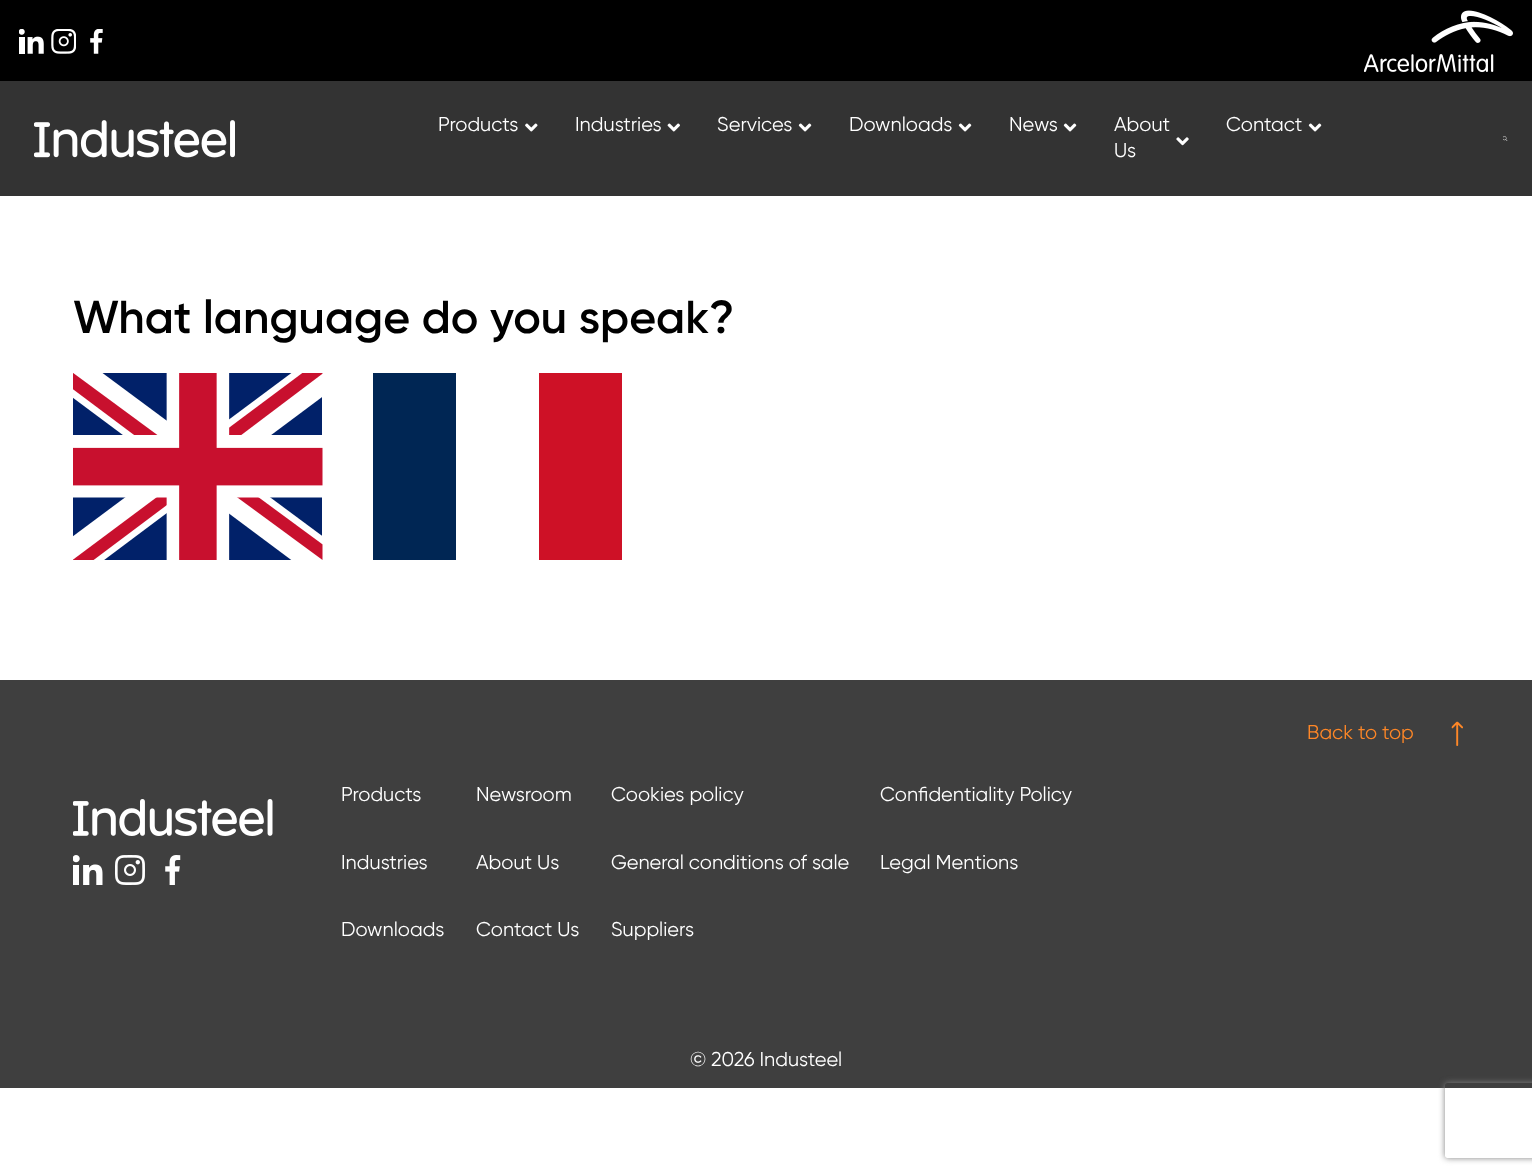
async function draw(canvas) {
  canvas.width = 1532
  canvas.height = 1175
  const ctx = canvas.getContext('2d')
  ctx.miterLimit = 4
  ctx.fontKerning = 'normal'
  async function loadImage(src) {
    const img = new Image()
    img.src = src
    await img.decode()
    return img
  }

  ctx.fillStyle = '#fff'
  ctx.fillRect(0, 0, 1532, 1175)
  ctx.fillStyle = '#000'
  ctx.fillRect(0, 0, 1532, 81)
  ctx.drawImage(await loadImage('image0.png'), 19, 29, 25, 25)
  ctx.drawImage(await loadImage('image1.png'), 51, 29, 25, 25)
  ctx.drawImage(await loadImage('image2.png'), 90, 29, 13, 25)
  ctx.drawImage(await loadImage('image3.png'), 1364, 10, 149, 63)
  ctx.fillStyle = '#333'
  ctx.fillRect(0, 81, 1532, 115)
  ctx.drawImage(await loadImage('image4.png'), 34, 120, 201, 38)
  ctx.font = '20px Gilroy'
  ctx.fillStyle = '#fff'
  ctx.fillText('Products', 438, 131)
  ctx.drawImage(await loadImage('image5.png'), 525, 123, 13, 9)
  ctx.fillText('Industries', 575, 131)
  ctx.drawImage(await loadImage('image6.png'), 667, 123, 13, 9)
  ctx.fillText('Services', 717, 131)
  ctx.drawImage(await loadImage('image7.png'), 798, 123, 14, 9)
  ctx.fillText('Downloads', 849, 131)
  ctx.drawImage(await loadImage('image7.png'), 958, 123, 14, 9)
  ctx.fillText('News', 1009, 131)
  ctx.drawImage(await loadImage('image7.png'), 1063, 123, 14, 9)
  ctx.fillText('About', 1114, 131)
  ctx.fillText('Us', 1114, 157)
  ctx.drawImage(await loadImage('image8.png'), 1176, 137, 13, 9)
  ctx.fillText('Contact', 1226, 131)
  ctx.drawImage(await loadImage('image7.png'), 1308, 123, 14, 9)
  ctx.drawImage(await loadImage('image9.png'), 1503, 136, 5, 5)
  ctx.font = '600 46.25px Gilroy'
  ctx.fillStyle = '#000'
  ctx.fillText('What language do you speak?', 73, 333)
  ctx.drawImage(await loadImage('image10.png'), 73, 373, 250, 187)
  ctx.fillStyle = '#002654'
  ctx.fillRect(373, 373, 83, 187)
  ctx.fillStyle = '#ce1126'
  ctx.fillRect(539, 373, 83, 187)
  ctx.fillStyle = '#3f3f3f'
  ctx.fillRect(0, 680, 1532, 408)
  ctx.font = '20px Gilroy'
  ctx.fillStyle = '#fe8727'
  ctx.fillText('Back to top', 1307, 739)
  ctx.drawImage(await loadImage('image11.png'), 1451, 721, 12, 25)
  ctx.drawImage(await loadImage('image12.png'), 73, 799, 200, 37)
  ctx.drawImage(await loadImage('image13.png'), 73, 855, 30, 30)
  ctx.drawImage(await loadImage('image14.png'), 115, 855, 30, 30)
  ctx.drawImage(await loadImage('image15.png'), 165, 855, 16, 30)
  ctx.fillStyle = '#fff'
  ctx.fillText('Products', 341, 801)
  ctx.fillText('Industries', 341, 869)
  ctx.fillText('Downloads', 341, 936)
  ctx.fillText('Newsroom', 476, 801)
  ctx.fillText('About Us', 476, 869)
  ctx.fillText('Contact Us', 476, 936)
  ctx.fillText('Cookies policy', 611, 801)
  ctx.fillText('General conditions of sale', 611, 869)
  ctx.fillText('Suppliers', 611, 936)
  ctx.fillText('Confidentiality Policy', 880, 801)
  ctx.fillText('Legal Mentions', 880, 869)
  ctx.fillText('© 2026 Industeel', 690, 1066)
  ctx.save()
  ctx.beginPath()
  ctx.moveTo(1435, 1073)
  ctx.lineTo(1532, 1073)
  ctx.lineTo(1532, 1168)
  ctx.lineTo(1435, 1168)
  ctx.closePath()
  ctx.moveTo(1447.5, 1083)
  ctx.lineTo(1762.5, 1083)
  ctx.bezierCurveTo(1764, 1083, 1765, 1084, 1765, 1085.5)
  ctx.lineTo(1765, 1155.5)
  ctx.bezierCurveTo(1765, 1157, 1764, 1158, 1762.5, 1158)
  ctx.lineTo(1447.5, 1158)
  ctx.bezierCurveTo(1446, 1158, 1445, 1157, 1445, 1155.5)
  ctx.lineTo(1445, 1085.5)
  ctx.bezierCurveTo(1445, 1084, 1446, 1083, 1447.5, 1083)
  ctx.closePath()
  ctx.clip('evenodd')
  ctx.fillStyle = '#808080'
  ctx.filter = 'blur(3px)'
  ctx.beginPath()
  ctx.roundRect(1445, 1083, 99, 75, 2.5)
  ctx.fill()
  ctx.filter = 'none'
  ctx.restore()
}

draw(document.querySelector('canvas'))
